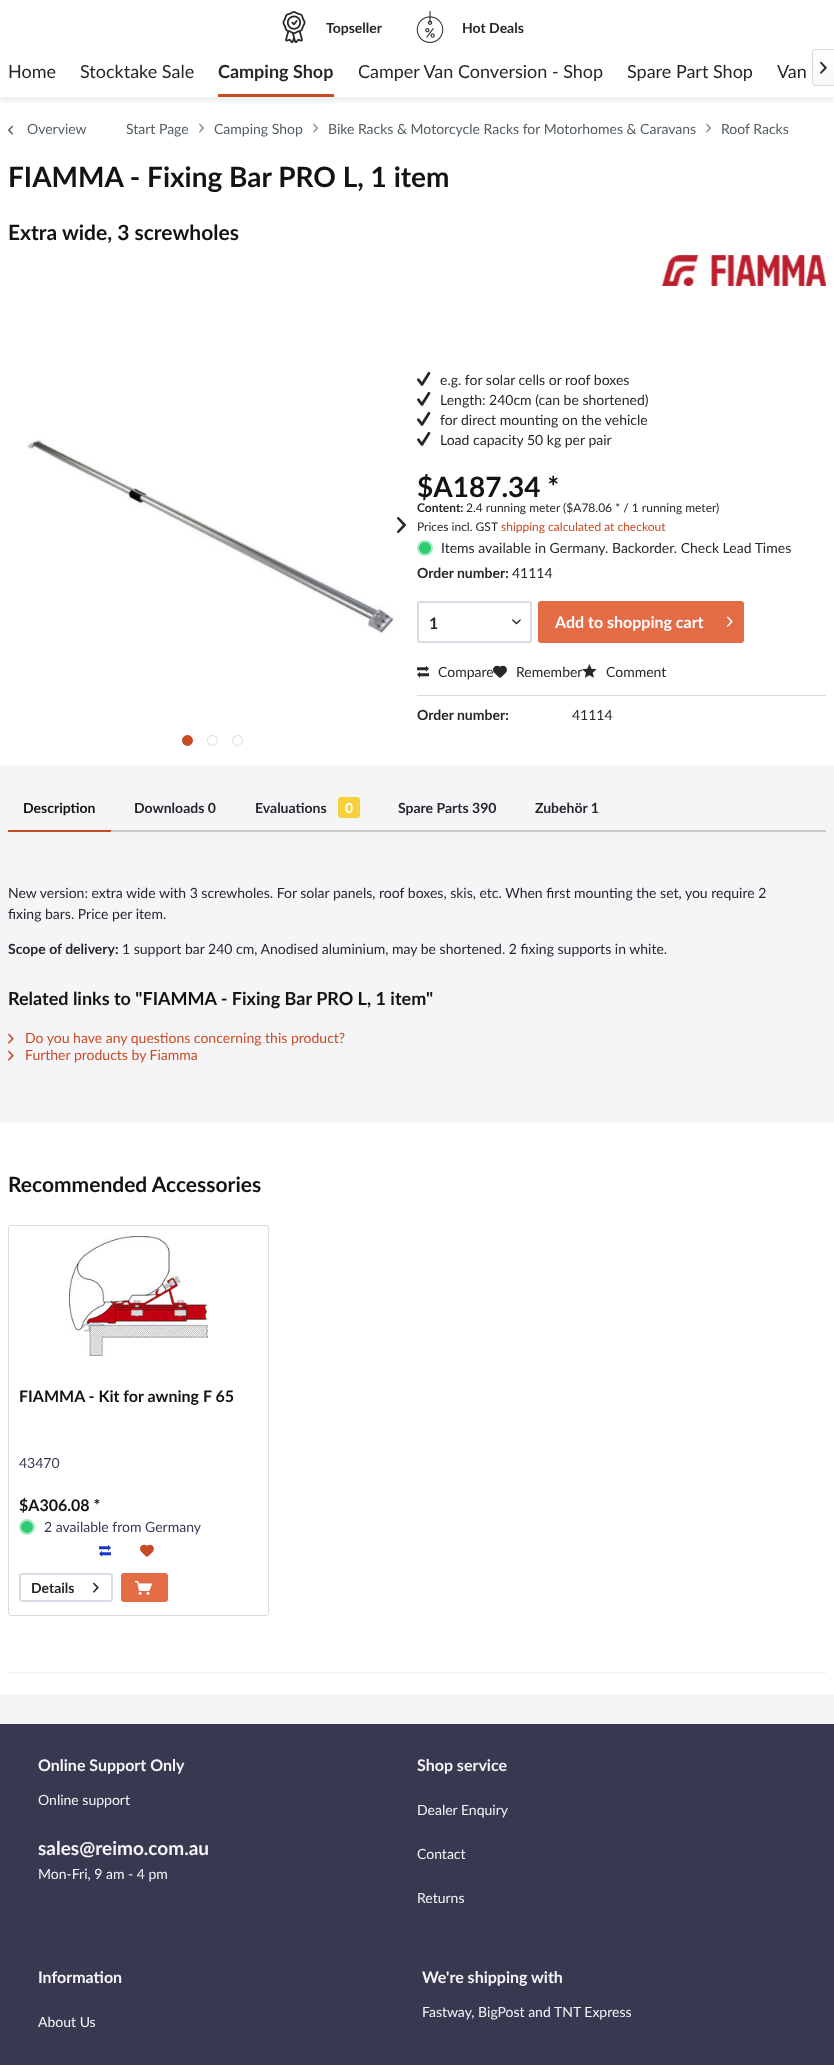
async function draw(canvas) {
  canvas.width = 834
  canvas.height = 2065
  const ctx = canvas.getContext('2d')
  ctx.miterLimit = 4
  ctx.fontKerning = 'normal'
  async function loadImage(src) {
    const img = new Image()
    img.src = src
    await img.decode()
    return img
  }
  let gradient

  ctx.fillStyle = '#fff'
  ctx.fillRect(0, 0, 834, 2065)
  ctx.drawImage(await loadImage('image0.png'), 282, 11, 24, 32)
  ctx.font = 'bold 14px Lato'
  ctx.fillStyle = '#24282b'
  ctx.fillText('Topseller', 326, 33)
  ctx.drawImage(await loadImage('image1.png'), 416, 11, 28, 32)
  ctx.fillText('Hot Deals', 462, 33)
  ctx.save()
  ctx.beginPath()
  ctx.rect(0, 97, 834, 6)
  ctx.clip()
  ctx.fillStyle = '#00000014'
  ctx.filter = 'blur(3px)'
  ctx.beginPath()
  ctx.rect(0, 52, 834, 49)
  ctx.fill()
  ctx.filter = 'none'
  ctx.restore()
  ctx.font = '18px Lato'
  ctx.fillText('Home', 8, 78)
  ctx.fillText('Stocktake Sale', 80, 78)
  ctx.fillStyle = '#c74b25'
  ctx.fillRect(218, 94, 116, 3)
  ctx.font = 'bold 18px Lato'
  ctx.fillStyle = '#24282b'
  ctx.fillText('Camping Shop', 218, 78)
  ctx.font = '18px Lato'
  ctx.fillText('Camper Van Conversion - Shop', 358, 78)
  ctx.fillText('Spare Part Shop', 627, 78)
  ctx.fillText('Van', 777, 78)
  gradient = ctx.createLinearGradient(824, 50, 824, 85)
  gradient.addColorStop(0, '#fff')
  gradient.addColorStop(1, '#f8f8fa')
  ctx.fillStyle = gradient
  ctx.beginPath()
  ctx.roundRect(813, 50, 21, 35, [2, 0, 0, 2])
  ctx.fill()
  ctx.fillStyle = '#dadae5'
  ctx.beginPath()
  ctx.moveTo(815, 49)
  ctx.lineTo(834, 49)
  ctx.lineTo(834, 86)
  ctx.lineTo(815, 86)
  ctx.bezierCurveTo(813.5, 86, 812, 84.5, 812, 83)
  ctx.lineTo(812, 52)
  ctx.bezierCurveTo(812, 50.5, 813.5, 49, 815, 49)
  ctx.closePath()
  ctx.moveTo(815, 50)
  ctx.lineTo(834, 50)
  ctx.lineTo(834, 85)
  ctx.lineTo(815, 85)
  ctx.bezierCurveTo(814, 85, 813, 84, 813, 83)
  ctx.lineTo(813, 52)
  ctx.bezierCurveTo(813, 51, 814, 50, 815, 50)
  ctx.closePath()
  ctx.fill('evenodd')
  ctx.drawImage(await loadImage('image2.png'), 820, 61, 7, 13)
  ctx.drawImage(await loadImage('image3.png'), 8, 125, 5, 10)
  ctx.font = '14px Lato'
  ctx.fillStyle = '#525c63'
  ctx.fillText('Overview', 27, 134)
  ctx.fillText('Start Page', 126, 134)
  ctx.drawImage(await loadImage('image4.png'), 199, 123, 5, 10)
  ctx.fillText('Camping Shop', 214, 134)
  ctx.drawImage(await loadImage('image4.png'), 313, 123, 5, 10)
  ctx.fillText('Bike Racks & Motorcycle Racks for Motorhomes & Caravans', 328, 134)
  ctx.drawImage(await loadImage('image4.png'), 706, 123, 5, 10)
  ctx.fillText('Roof Racks', 721, 134)
  ctx.font = 'bold 28px Lato'
  ctx.fillStyle = '#121314'
  ctx.fillText('FIAMMA - Fixing Bar PRO L, 1 item', 8, 187)
  ctx.font = 'bold 21px Lato'
  ctx.fillText('Extra wide, 3 screwholes', 8, 240)
  ctx.drawImage(await loadImage('image5.png'), 662, 255, 164, 31)
  ctx.drawImage(await loadImage('image6.png'), 27, 437, 367, 197)
  ctx.drawImage(await loadImage('image7.png'), 397, 517, 9, 16)
  ctx.fillStyle = '#c74b25'
  ctx.beginPath()
  ctx.arc(187.5, 740.5, 5, 0, 2 * Math.PI)
  ctx.fill()
  ctx.strokeStyle = '#c74b25'
  ctx.stroke()
  ctx.beginPath()
  ctx.arc(212.5, 740.5, 5, 0, 2 * Math.PI)
  ctx.strokeStyle = '#dadae5'
  ctx.stroke()
  ctx.beginPath()
  ctx.arc(237.5, 740.5, 5, 0, 2 * Math.PI)
  ctx.stroke()
  ctx.drawImage(await loadImage('image8.png'), 417, 371, 14, 15)
  ctx.font = '14px Lato'
  ctx.fillStyle = '#24282b'
  ctx.fillText('e.g. for solar cells or roof boxes', 440, 385)
  ctx.drawImage(await loadImage('image8.png'), 417, 391, 14, 15)
  ctx.fillText('Length: 240cm (can be shortened)', 440, 405)
  ctx.drawImage(await loadImage('image8.png'), 417, 411, 14, 15)
  ctx.fillText('for direct mounting on the vehicle', 440, 425)
  ctx.drawImage(await loadImage('image8.png'), 417, 431, 14, 15)
  ctx.fillText('Load capacity 50 kg per pair', 440, 445)
  ctx.font = 'bold 28px Lato'
  ctx.fillStyle = '#121314'
  ctx.fillText('$A187.34 *', 417, 497)
  ctx.font = 'bold 12px Lato'
  ctx.fillStyle = '#24282b'
  ctx.fillText('Content:', 417, 512)
  ctx.font = '12px Lato'
  ctx.fillText('2.4 running meter ($A78.06 * / 1 running meter)', 466, 512)
  ctx.fillText('Prices incl. GST', 417, 531)
  ctx.fillStyle = '#c74b25'
  ctx.fillText('shipping calculated at checkout', 501, 531)
  ctx.fillStyle = '#2ecc71'
  ctx.beginPath()
  ctx.arc(425, 548, 7, 0, 2 * Math.PI)
  ctx.fill()
  ctx.strokeStyle = '#a8ebc4'
  ctx.lineWidth = 2
  ctx.stroke()
  ctx.font = '14px Lato'
  ctx.fillStyle = '#24282b'
  ctx.fillText('Items available in Germany. Backorder. Check Lead Times', 441, 553)
  ctx.font = 'bold 14px Lato'
  ctx.fillText('Order number:', 417, 578)
  ctx.font = '14px Lato'
  ctx.fillText('41114', 512, 578)
  ctx.beginPath()
  ctx.roundRect(418, 602, 113, 40, 2)
  ctx.strokeStyle = '#dadae5'
  ctx.stroke()
  ctx.font = 'bold 16px Lato'
  ctx.fillText('1', 429, 629)
  ctx.drawImage(await loadImage('image9.png'), 512, 619, 9, 6)
  ctx.fillStyle = '#e36b46'
  ctx.beginPath()
  ctx.roundRect(538, 601, 206, 42, 3)
  ctx.fill()
  ctx.fillStyle = '#fff'
  ctx.fillText('Add to shopping cart', 555, 628)
  ctx.drawImage(await loadImage('image10.png'), 727, 616, 6, 11)
  ctx.fillStyle = '#dadae5'
  ctx.fillRect(417, 695, 409, 1)
  ctx.drawImage(await loadImage('image11.png'), 417, 665, 12, 13)
  ctx.font = '14px Lato'
  ctx.fillStyle = '#24282b'
  ctx.fillText('Compare', 438, 677)
  ctx.drawImage(await loadImage('image12.png'), 493, 665, 14, 13)
  ctx.fillText('Remember', 516, 677)
  ctx.drawImage(await loadImage('image13.png'), 582, 664, 15, 14)
  ctx.fillText('Comment', 606, 677)
  ctx.font = 'bold 14px Lato'
  ctx.fillText('Order number:', 417, 720)
  ctx.font = '14px Lato'
  ctx.fillText('41114', 572, 720)
  ctx.fillStyle = '#f5f5f8'
  ctx.fillRect(0, 765, 834, 358)
  ctx.fillStyle = '#ccc'
  ctx.fillRect(111, 830, 715, 2)
  ctx.fillStyle = '#c74b25'
  ctx.fillRect(8, 830, 103, 2)
  ctx.font = 'bold 14px Lato'
  ctx.fillStyle = '#121314'
  ctx.fillText('Description', 23, 813)
  ctx.fillStyle = '#24282b'
  ctx.fillText('Downloads 0', 134, 813)
  ctx.fillText('Evaluations', 255, 813)
  ctx.fillStyle = '#f6d13b'
  ctx.beginPath()
  ctx.roundRect(338, 797, 22, 21, 3)
  ctx.fill()
  ctx.fillStyle = '#fff'
  ctx.fillText('0', 345, 813)
  ctx.fillStyle = '#24282b'
  ctx.fillText('Spare Parts 390', 398, 813)
  ctx.fillText('Zubehör 1', 535, 813)
  ctx.font = '14px Lato'
  ctx.fillText('New version: extra wide with 3 screwholes. For solar panels, roof boxes, skis, etc. When first mounting the set, you require 2', 8, 898)
  ctx.fillText('fixing bars. Price per item.', 8, 919)
  ctx.font = 'bold 14px Lato'
  ctx.fillText('Scope of delivery:', 8, 954)
  ctx.font = '14px Lato'
  ctx.fillText('1 support bar 240 cm, Anodised aluminium, may be shortened. 2 fixing supports in white.', 122, 954)
  ctx.font = 'bold 18px Lato'
  ctx.fillStyle = '#121314'
  ctx.fillText('Related links to "FIAMMA - Fixing Bar PRO L, 1 item"', 8, 1005)
  ctx.drawImage(await loadImage('image14.png'), 8, 1033, 6, 11)
  ctx.font = '14px Lato'
  ctx.fillStyle = '#c74b25'
  ctx.fillText('Do you have any questions concerning this product?', 25, 1043)
  ctx.drawImage(await loadImage('image14.png'), 8, 1050, 6, 11)
  ctx.fillText('Further products by Fiamma', 25, 1060)
  ctx.font = 'bold 21px Lato'
  ctx.fillStyle = '#121314'
  ctx.fillText('Recommended Accessories', 8, 1192)
  ctx.beginPath()
  ctx.roundRect(8.5, 1225.5, 260, 390, 2.5)
  ctx.lineWidth = 1
  ctx.stroke()
  ctx.drawImage(await loadImage('image15.png'), 69, 1236, 139, 120)
  ctx.font = 'bold 16px Lato'
  ctx.fillText('FIAMMA - Kit for awning F 65', 19, 1402)
  ctx.font = '14px Lato'
  ctx.fillStyle = '#383850'
  ctx.fillText('43470', 19, 1468)
  ctx.font = 'bold 16px Lato'
  ctx.fillStyle = '#121314'
  ctx.fillText('$A306.08 *', 19, 1511)
  ctx.fillStyle = '#2ecc71'
  ctx.beginPath()
  ctx.arc(27, 1527, 7, 0, 2 * Math.PI)
  ctx.fill()
  ctx.strokeStyle = '#a8ebc4'
  ctx.lineWidth = 2
  ctx.stroke()
  ctx.font = '14px Lato'
  ctx.fillStyle = '#383850'
  ctx.fillText('2 available from Germany', 44, 1532)
  ctx.drawImage(await loadImage('image16.png'), 99, 1544, 12, 13)
  ctx.drawImage(await loadImage('image17.png'), 140, 1544, 14, 13)
  ctx.beginPath()
  ctx.roundRect(20, 1574, 92, 27, 2)
  ctx.strokeStyle = '#dadae5'
  ctx.stroke()
  ctx.font = 'bold 14px Lato'
  ctx.fillStyle = '#24282b'
  ctx.fillText('Details', 31, 1593)
  ctx.drawImage(await loadImage('image18.png'), 93, 1582, 6, 11)
  ctx.fillStyle = '#e36b46'
  ctx.beginPath()
  ctx.roundRect(121, 1573, 47, 29, 3)
  ctx.fill()
  ctx.drawImage(await loadImage('image19.png'), 135, 1580, 18, 15)
  ctx.fillStyle = '#f5f5f8'
  ctx.fillRect(8, 1672, 818, 2)
  ctx.fillRect(0, 1694, 834, 30)
  ctx.fillStyle = '#383850'
  ctx.fillRect(0, 1724, 834, 341)
  ctx.font = 'bold 16px Lato'
  ctx.fillStyle = '#f5f5f8'
  ctx.fillText('Online Support Only', 38, 1771)
  ctx.font = '14px Lato'
  ctx.fillText('Online support', 38, 1805)
  ctx.font = 'bold 19px Lato'
  ctx.fillText('sales@reimo.com.au', 38, 1855)
  ctx.font = '14px Lato'
  ctx.fillText('Mon-Fri, 9 am - 4 pm', 38, 1879)
  ctx.font = 'bold 16px Lato'
  ctx.fillText('Shop service', 417, 1771)
  ctx.font = '14px Lato'
  ctx.fillText('Dealer Enquiry', 417, 1815)
  ctx.fillText('Contact', 417, 1859)
  ctx.fillText('Returns', 417, 1903)
  ctx.font = 'bold 16px Lato'
  ctx.fillText('Information', 38, 1983)
  ctx.font = '14px Lato'
  ctx.fillText('About Us', 38, 2027)
  ctx.font = 'bold 16px Lato'
  ctx.fillText('We\'re shipping with', 422, 1983)
  ctx.font = '14px Lato'
  ctx.fillText('Fastway, BigPost and TNT Express', 422, 2017)
}

draw(document.querySelector('canvas'))
